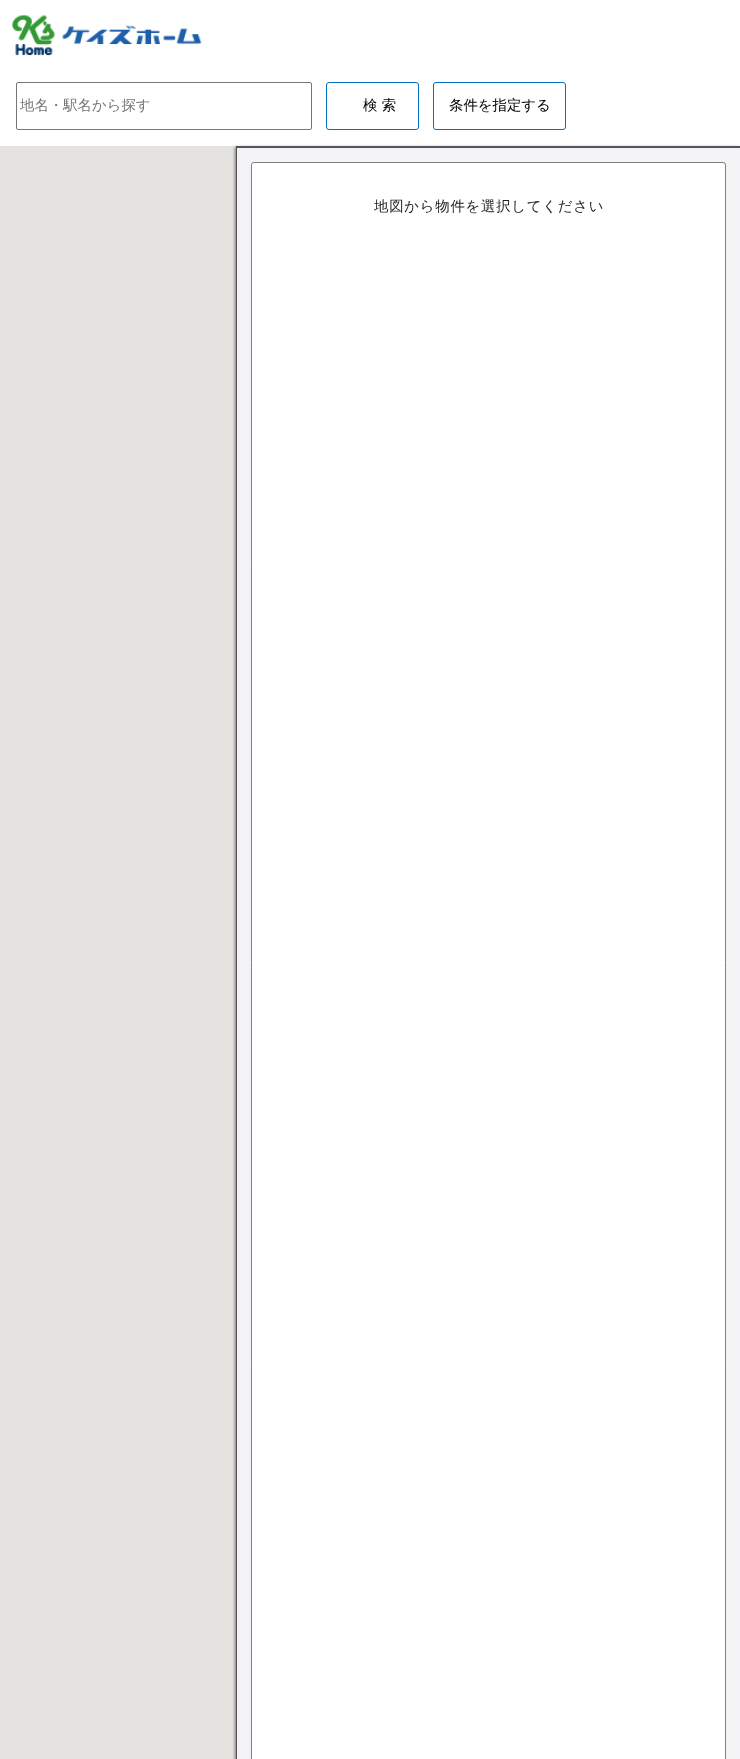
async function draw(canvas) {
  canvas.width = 740
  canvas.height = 1759
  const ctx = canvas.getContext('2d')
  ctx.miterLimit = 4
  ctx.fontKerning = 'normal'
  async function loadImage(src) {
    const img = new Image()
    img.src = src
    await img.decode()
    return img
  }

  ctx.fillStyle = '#fff'
  ctx.fillRect(0, 0, 740, 1759)
  ctx.drawImage(await loadImage('image0.png'), 12, 15, 190, 41)
  ctx.beginPath()
  ctx.roundRect(16.5, 82.5, 295, 47, 1.5)
  ctx.strokeStyle = '#767676'
  ctx.stroke()
  ctx.font = '500 14.4px WenQuanYi Zen Hei'
  ctx.fillStyle = '#757575'
  ctx.fillText('地名・駅名から探す', 20, 110)
  ctx.beginPath()
  ctx.roundRect(326.5, 82.5, 92, 47, 2.5)
  ctx.strokeStyle = '#0071bc'
  ctx.stroke()
  ctx.fillStyle = '#000'
  ctx.fillText('検 索', 363, 110)
  ctx.beginPath()
  ctx.roundRect(433.5, 82.5, 132, 47, 2.5)
  ctx.stroke()
  ctx.fillText('条件を指定する', 449, 110)
  ctx.fillStyle = '#e5e3df'
  ctx.fillRect(0, 146, 236, 1613)
  ctx.fillStyle = '#00000080'
  ctx.filter = 'blur(1.5px)'
  ctx.beginPath()
  ctx.rect(235, 147, 504, 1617)
  ctx.fill()
  ctx.filter = 'none'
  ctx.fillStyle = '#f3f3f5'
  ctx.fillRect(237, 148, 503, 1611)
  ctx.fillStyle = '#555'
  ctx.fillRect(236, 146, 504, 2)
  ctx.fillRect(236, 146, 1, 1613)
  ctx.fillStyle = '#fff'
  ctx.beginPath()
  ctx.roundRect(251.5, 162.5, 474, 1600, 2.5)
  ctx.fill()
  ctx.strokeStyle = '#808080'
  ctx.stroke()
  ctx.letterSpacing = '0.75px'
  ctx.fillStyle = '#212529'
  ctx.fillText('地図から物件を選択してください', 374, 211)
}

draw(document.querySelector('canvas'))
